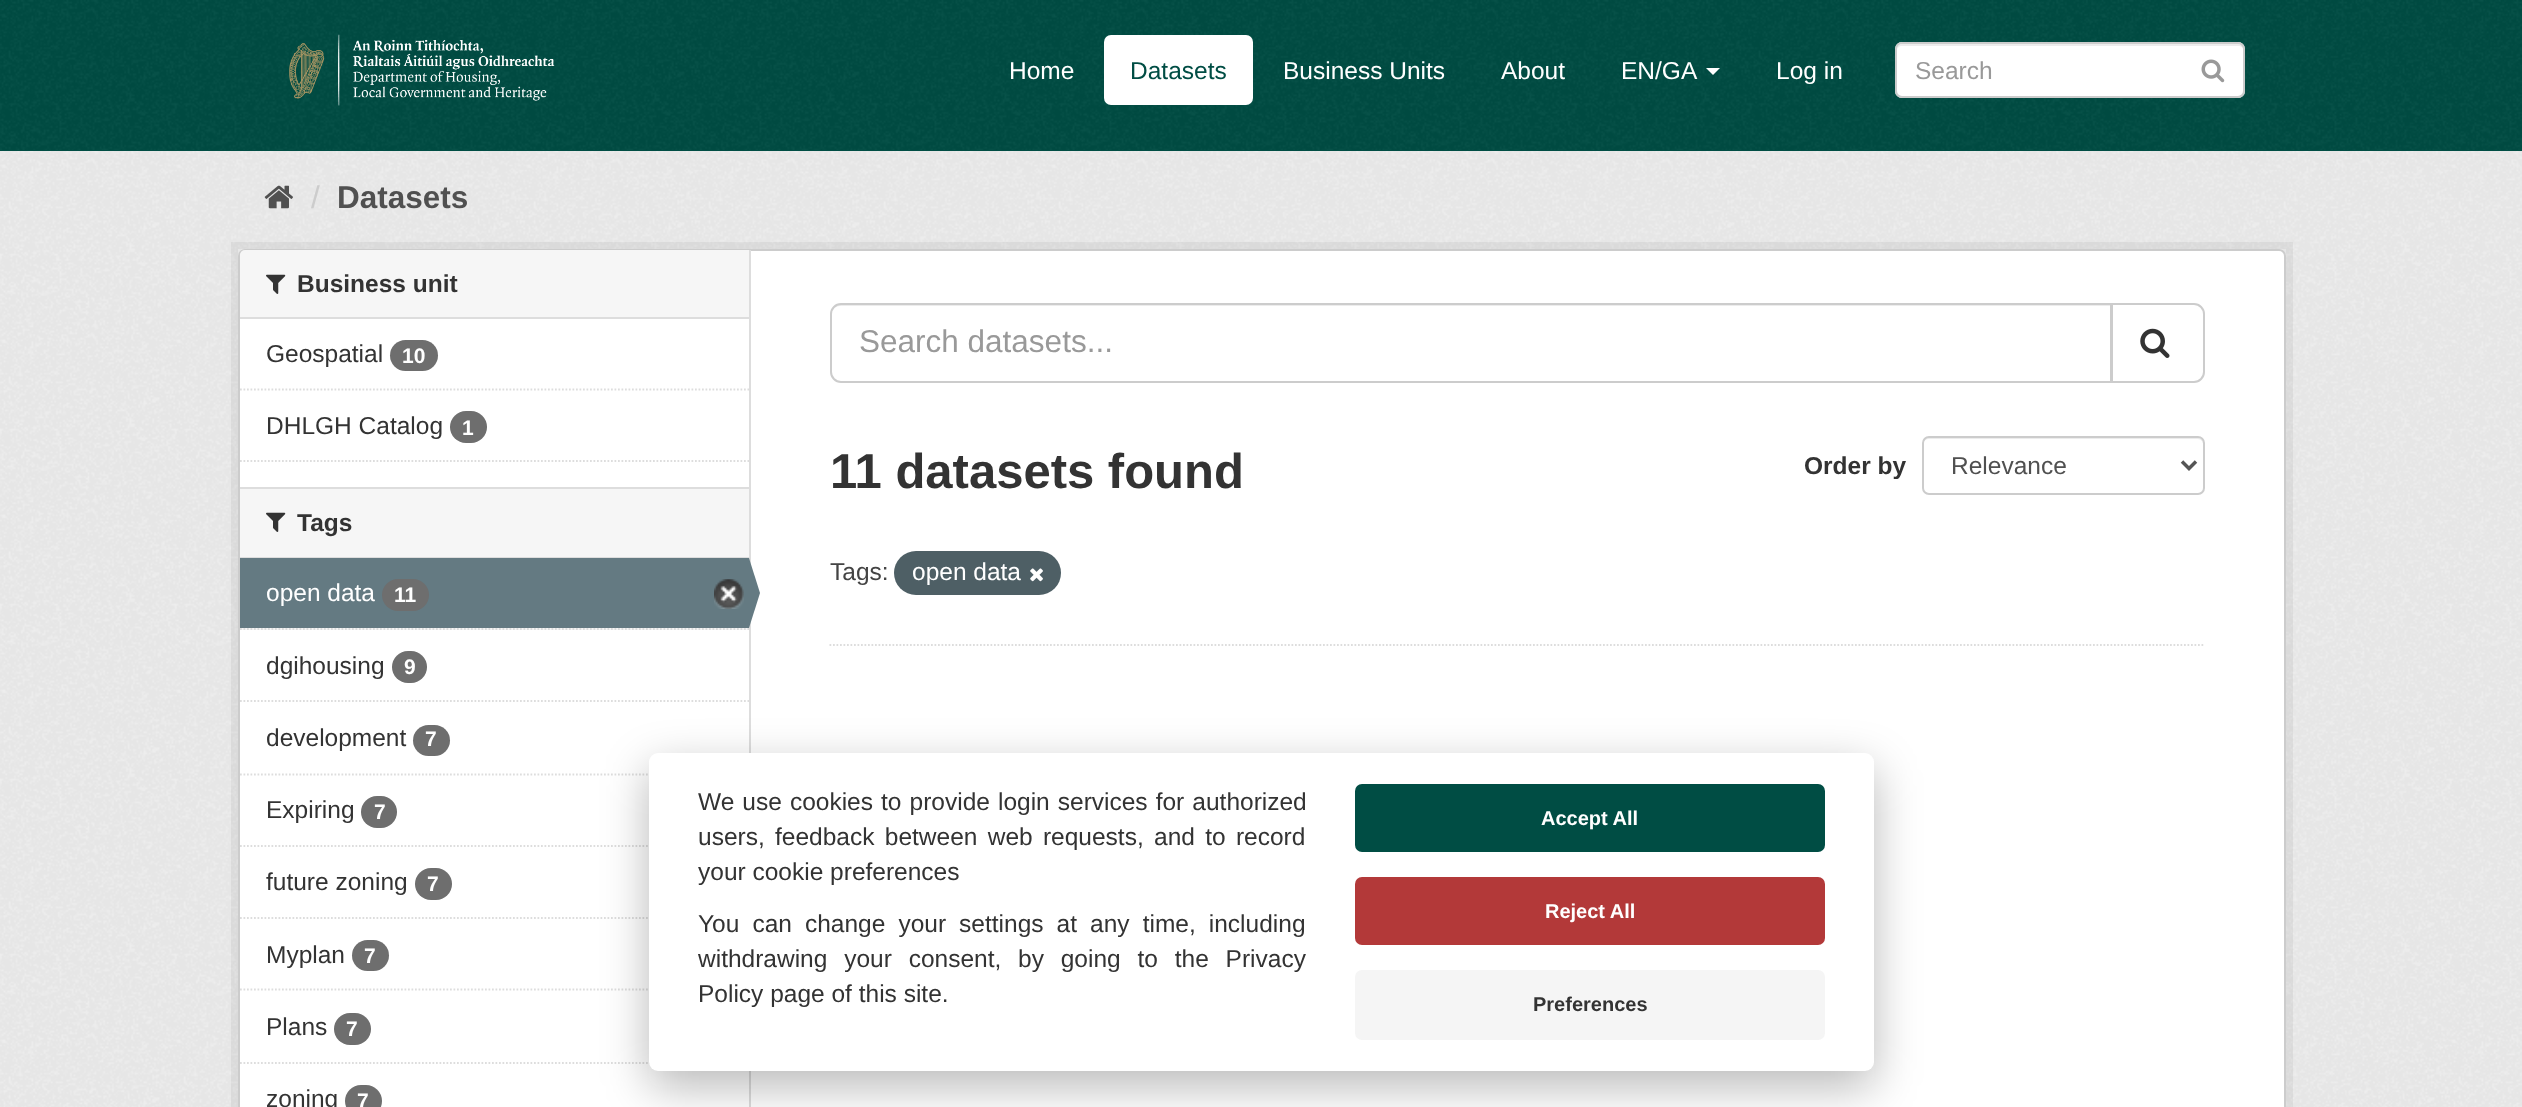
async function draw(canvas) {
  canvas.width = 2522
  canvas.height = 1107
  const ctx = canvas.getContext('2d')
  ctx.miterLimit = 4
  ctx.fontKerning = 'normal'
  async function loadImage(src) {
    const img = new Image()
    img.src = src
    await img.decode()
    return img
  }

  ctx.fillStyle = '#eee'
  ctx.fillRect(0, 0, 2522, 1107)
  ctx.fillStyle = '#004d44'
  ctx.fillRect(0, 0, 2522, 151)
  ctx.drawImage(await loadImage('image0.png'), 0, 0, 2522, 150)
  ctx.drawImage(await loadImage('image1.png'), 289, 34, 266, 72)
  ctx.font = '24.5px Liberation Sans'
  ctx.fillStyle = '#fff'
  ctx.fillText('Home', 1009, 79)
  ctx.beginPath()
  ctx.roundRect(1104, 35, 149, 70, 7)
  ctx.fill()
  ctx.fillStyle = '#004d44'
  ctx.fillText('Datasets', 1130, 79)
  ctx.fillStyle = '#fff'
  ctx.fillText('Business Units', 1283, 79)
  ctx.fillText('About', 1501, 79)
  ctx.fillText('EN/GA', 1621, 79)
  ctx.beginPath()
  ctx.moveTo(1706, 68)
  ctx.lineTo(1720, 68)
  ctx.lineTo(1713, 75)
  ctx.closePath()
  ctx.fill()
  ctx.fillText('Log in', 1776, 79)
  ctx.beginPath()
  ctx.roundRect(1895, 42, 350, 56, 7)
  ctx.fill()
  ctx.fillStyle = '#ececec'
  ctx.beginPath()
  ctx.moveTo(1902, 46)
  ctx.lineTo(2238, 46)
  ctx.bezierCurveTo(2241, 46, 2244, 48, 2244, 51)
  ctx.bezierCurveTo(2244, 48, 2243, 44, 2239, 44)
  ctx.lineTo(1902, 44)
  ctx.bezierCurveTo(1898, 44, 1897, 48, 1897, 51)
  ctx.bezierCurveTo(1897, 48, 1899, 46, 1902, 46)
  ctx.closePath()
  ctx.fill()
  ctx.beginPath()
  ctx.roundRect(1896, 43, 348, 54, 6)
  ctx.strokeStyle = '#ccc'
  ctx.lineWidth = 2
  ctx.stroke()
  ctx.fillStyle = '#999'
  ctx.fillText('Search', 1915, 79)
  ctx.drawImage(await loadImage('image2.png'), 2201, 59, 24, 24)
  ctx.drawImage(await loadImage('image3.png'), 0, 151, 2522, 956)
  ctx.drawImage(await loadImage('image4.png'), 264, 185, 29, 24)
  ctx.font = '31.5px Liberation Sans'
  ctx.fillStyle = '#ccc'
  ctx.fillText('/', 311, 208)
  ctx.font = 'bold 31.5px Liberation Sans'
  ctx.fillStyle = '#505050'
  ctx.fillText('Datasets', 337, 208)
  ctx.strokeStyle = '#0000000d'
  ctx.lineWidth = 7
  ctx.strokeRect(234.5, 245.5, 2055, 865)
  ctx.fillStyle = '#fff'
  ctx.beginPath()
  ctx.roundRect(239, 250, 2046, 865, 6)
  ctx.fill()
  ctx.strokeStyle = '#ccc'
  ctx.lineWidth = 2
  ctx.stroke()
  ctx.fillStyle = '#f6f6f6'
  ctx.beginPath()
  ctx.roundRect(240, 250, 509, 69, [5, 0, 0, 0])
  ctx.fill()
  ctx.fillStyle = '#ddd'
  ctx.fillRect(240, 317, 509, 2)
  ctx.drawImage(await loadImage('image5.png'), 266, 274, 20, 20)
  ctx.font = 'bold 24.5px Liberation Sans'
  ctx.fillStyle = '#333'
  ctx.fillText('Business unit', 297, 292)
  ctx.beginPath()
  ctx.moveTo(240, 389.5)
  ctx.lineTo(749, 389.5)
  ctx.strokeStyle = '#ddd'
  ctx.lineWidth = 1.8
  ctx.setLineDash([1.75, 1.75])
  ctx.stroke()
  ctx.font = '24.5px Liberation Sans'
  ctx.fillText('Geospatial', 266, 362)
  ctx.fillStyle = '#6e6e6e'
  ctx.beginPath()
  ctx.roundRect(390, 340, 48, 31, 15.5)
  ctx.fill()
  ctx.font = 'bold 21px Liberation Sans'
  ctx.fillStyle = '#fff'
  ctx.fillText('10', 402, 363)
  ctx.font = '24.5px Liberation Sans'
  ctx.fillStyle = '#333'
  ctx.fillText('DHLGH Catalog', 266, 434)
  ctx.fillStyle = '#6e6e6e'
  ctx.beginPath()
  ctx.roundRect(450, 411, 37, 32, 16)
  ctx.fill()
  ctx.font = 'bold 21px Liberation Sans'
  ctx.fillStyle = '#fff'
  ctx.fillText('1', 462, 435)
  ctx.beginPath()
  ctx.moveTo(240, 461)
  ctx.lineTo(749, 461)
  ctx.stroke()
  ctx.fillStyle = '#f6f6f6'
  ctx.fillRect(240, 489, 509, 68)
  ctx.fillStyle = '#ddd'
  ctx.fillRect(240, 487, 509, 2)
  ctx.fillRect(240, 557, 509, 1)
  ctx.drawImage(await loadImage('image5.png'), 266, 512, 20, 20)
  ctx.font = 'bold 24.5px Liberation Sans'
  ctx.fillStyle = '#333'
  ctx.fillText('Tags', 297, 531)
  ctx.fillStyle = '#f6f6f6'
  ctx.fillRect(240, 628, 509, 2)
  ctx.beginPath()
  ctx.moveTo(240, 629)
  ctx.lineTo(749, 629)
  ctx.stroke()
  ctx.fillStyle = '#647a82'
  ctx.fillRect(240, 558, 509, 70)
  ctx.font = '24.5px Liberation Sans'
  ctx.fillStyle = '#fff'
  ctx.fillText('open data', 266, 601)
  ctx.fillStyle = '#6e6e6e'
  ctx.beginPath()
  ctx.roundRect(382, 579, 47, 32, 16)
  ctx.fill()
  ctx.font = 'bold 21px Liberation Sans'
  ctx.fillStyle = '#fff'
  ctx.fillText('11', 394, 602)
  ctx.drawImage(await loadImage('image6.png'), 714, 579, 30, 30)
  ctx.fillStyle = '#ddd'
  ctx.fillRect(749, 250, 2, 857)
  ctx.fillStyle = '#647a82'
  ctx.beginPath()
  ctx.moveTo(749, 628)
  ctx.lineTo(749, 558)
  ctx.lineTo(760, 593)
  ctx.closePath()
  ctx.fill()
  ctx.beginPath()
  ctx.moveTo(240, 701)
  ctx.lineTo(749, 701)
  ctx.stroke()
  ctx.font = '24.5px Liberation Sans'
  ctx.fillStyle = '#333'
  ctx.fillText('dgihousing', 266, 674)
  ctx.fillStyle = '#6e6e6e'
  ctx.beginPath()
  ctx.roundRect(392, 651, 35, 32, 16)
  ctx.fill()
  ctx.font = 'bold 21px Liberation Sans'
  ctx.fillStyle = '#fff'
  ctx.fillText('9', 404, 674)
  ctx.beginPath()
  ctx.moveTo(240, 774.5)
  ctx.lineTo(749, 774.5)
  ctx.stroke()
  ctx.font = '24.5px Liberation Sans'
  ctx.fillStyle = '#333'
  ctx.fillText('development', 266, 746)
  ctx.fillStyle = '#6e6e6e'
  ctx.beginPath()
  ctx.roundRect(413, 725, 37, 31, 15.5)
  ctx.fill()
  ctx.font = 'bold 21px Liberation Sans'
  ctx.fillStyle = '#fff'
  ctx.fillText('7', 425, 746)
  ctx.beginPath()
  ctx.moveTo(240, 846)
  ctx.lineTo(749, 846)
  ctx.stroke()
  ctx.font = '24.5px Liberation Sans'
  ctx.fillStyle = '#333'
  ctx.fillText('Expiring', 266, 818)
  ctx.fillStyle = '#6e6e6e'
  ctx.beginPath()
  ctx.roundRect(361, 796, 36, 32, 16)
  ctx.fill()
  ctx.font = 'bold 21px Liberation Sans'
  ctx.fillStyle = '#fff'
  ctx.fillText('7', 374, 819)
  ctx.beginPath()
  ctx.moveTo(240, 918)
  ctx.lineTo(749, 918)
  ctx.stroke()
  ctx.font = '24.5px Liberation Sans'
  ctx.fillStyle = '#333'
  ctx.fillText('future zoning', 266, 890)
  ctx.fillStyle = '#6e6e6e'
  ctx.beginPath()
  ctx.roundRect(415, 868, 37, 32, 16)
  ctx.fill()
  ctx.font = 'bold 21px Liberation Sans'
  ctx.fillStyle = '#fff'
  ctx.fillText('7', 427, 891)
  ctx.beginPath()
  ctx.moveTo(240, 989.5)
  ctx.lineTo(749, 989.5)
  ctx.stroke()
  ctx.font = '24.5px Liberation Sans'
  ctx.fillStyle = '#333'
  ctx.fillText('Myplan', 266, 963)
  ctx.fillStyle = '#6e6e6e'
  ctx.beginPath()
  ctx.roundRect(352, 940, 37, 31, 15.5)
  ctx.fill()
  ctx.font = 'bold 21px Liberation Sans'
  ctx.fillStyle = '#fff'
  ctx.fillText('7', 364, 963)
  ctx.beginPath()
  ctx.moveTo(240, 1063)
  ctx.lineTo(749, 1063)
  ctx.stroke()
  ctx.font = '24.5px Liberation Sans'
  ctx.fillStyle = '#333'
  ctx.fillText('Plans', 266, 1035)
  ctx.fillStyle = '#6e6e6e'
  ctx.beginPath()
  ctx.roundRect(334, 1013, 37, 32, 16)
  ctx.fill()
  ctx.font = 'bold 21px Liberation Sans'
  ctx.fillStyle = '#fff'
  ctx.fillText('7', 346, 1036)
  ctx.font = '24.5px Liberation Sans'
  ctx.fillStyle = '#333'
  ctx.fillText('zoning', 266, 1107)
  ctx.fillStyle = '#6e6e6e'
  ctx.beginPath()
  ctx.roundRect(345, 1085, 37, 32, 16)
  ctx.fill()
  ctx.font = 'bold 21px Liberation Sans'
  ctx.fillStyle = '#fff'
  ctx.fillText('7', 357, 1108)
  ctx.beginPath()
  ctx.moveTo(829.5, 645)
  ctx.lineTo(2205, 645)
  ctx.stroke()
  ctx.fillStyle = '#ececec'
  ctx.beginPath()
  ctx.moveTo(840, 306)
  ctx.lineTo(2110, 306)
  ctx.lineTo(2110, 382)
  ctx.lineTo(2111, 382)
  ctx.lineTo(2111, 305)
  ctx.lineTo(840, 305)
  ctx.bezierCurveTo(835, 305, 831, 309, 831, 314)
  ctx.lineTo(831, 315)
  ctx.bezierCurveTo(831, 310, 835, 306, 840, 306)
  ctx.closePath()
  ctx.fill()
  ctx.beginPath()
  ctx.roundRect(831, 304, 1280, 78, [10, 0, 0, 10])
  ctx.strokeStyle = '#ccc'
  ctx.lineWidth = 2
  ctx.setLineDash([])
  ctx.stroke()
  ctx.font = '31.5px Liberation Sans'
  ctx.fillStyle = '#999'
  ctx.fillText('Search datasets...', 859, 352)
  ctx.fillStyle = '#fff'
  ctx.beginPath()
  ctx.roundRect(2112, 304, 92, 78, [0, 10, 10, 0])
  ctx.fill()
  ctx.stroke()
  ctx.drawImage(await loadImage('image7.png'), 2140, 328, 30, 30)
  ctx.font = 'bold 49px Liberation Sans'
  ctx.fillStyle = '#333'
  ctx.fillText('11 datasets found', 830, 488)
  ctx.font = 'bold 24.5px Liberation Sans'
  ctx.fillText('Order by', 1804, 474)
  ctx.fillStyle = '#ececec'
  ctx.beginPath()
  ctx.moveTo(1928, 439)
  ctx.lineTo(2198, 439)
  ctx.bezierCurveTo(2201, 439, 2203, 442, 2203, 444)
  ctx.lineTo(2203, 443)
  ctx.bezierCurveTo(2203, 440, 2201, 438, 2198, 438)
  ctx.lineTo(1928, 438)
  ctx.bezierCurveTo(1925, 438, 1923, 440, 1923, 443)
  ctx.lineTo(1923, 444)
  ctx.bezierCurveTo(1923, 442, 1926, 439, 1928, 439)
  ctx.closePath()
  ctx.fill()
  ctx.beginPath()
  ctx.roundRect(1923, 437, 281, 57, 6)
  ctx.stroke()
  ctx.beginPath()
  ctx.moveTo(2182, 461.5)
  ctx.lineTo(2189, 468.5)
  ctx.lineTo(2196, 461.5)
  ctx.strokeStyle = '#555'
  ctx.lineWidth = 3.5
  ctx.stroke()
  ctx.font = '24.5px Liberation Sans'
  ctx.fillStyle = '#505050'
  ctx.fillText('Relevance', 1951, 474)
  ctx.fillStyle = '#444'
  ctx.fillText('Tags:', 830, 580)
  ctx.fillStyle = '#4e5f65'
  ctx.beginPath()
  ctx.roundRect(894, 551, 167, 44, 22)
  ctx.fill()
  ctx.fillStyle = '#fff'
  ctx.fillText('open data', 912, 580)
  ctx.drawImage(await loadImage('image8.png'), 1030, 568, 13, 14)
  ctx.fillStyle = '#02020347'
  ctx.filter = 'blur(23px)'
  ctx.beginPath()
  ctx.roundRect(649, 768, 1225, 319, 9)
  ctx.fill()
  ctx.filter = 'none'
  ctx.fillStyle = '#fff'
  ctx.beginPath()
  ctx.roundRect(649, 753, 1225, 318, 9)
  ctx.fill()
  ctx.wordSpacing = '1.25px'
  ctx.fillStyle = '#333'
  ctx.fillText('We use cookies to provide login services for authorized', 698, 810)
  ctx.wordSpacing = '3.5px'
  ctx.fillText('users, feedback between web requests, and to record', 698, 845)
  ctx.wordSpacing = '0px'
  ctx.fillText('your cookie preferences', 698, 880)
  ctx.wordSpacing = '6.25px'
  ctx.fillText('You can change your settings at any time, including', 698, 932)
  ctx.wordSpacing = '10px'
  ctx.fillText('withdrawing your consent, by going to the Privacy', 698, 967)
  ctx.wordSpacing = '0px'
  ctx.fillText('Policy page of this site.', 698, 1002)
  ctx.fillStyle = '#004d44'
  ctx.beginPath()
  ctx.roundRect(1355, 784, 470, 68, 7)
  ctx.fill()
  ctx.font = 'bold 20px Liberation Sans'
  ctx.fillStyle = '#fff'
  ctx.fillText('Accept All', 1541, 825)
  ctx.fillStyle = '#b33939'
  ctx.beginPath()
  ctx.roundRect(1355, 877, 470, 68, 7)
  ctx.fill()
  ctx.fillStyle = '#fff'
  ctx.fillText('Reject All', 1545, 918)
  ctx.fillStyle = '#f5f5f5'
  ctx.beginPath()
  ctx.roundRect(1355, 970, 470, 70, 7)
  ctx.fill()
  ctx.fillStyle = '#333'
  ctx.fillText('Preferences', 1533, 1011)
}

draw(document.querySelector('canvas'))
